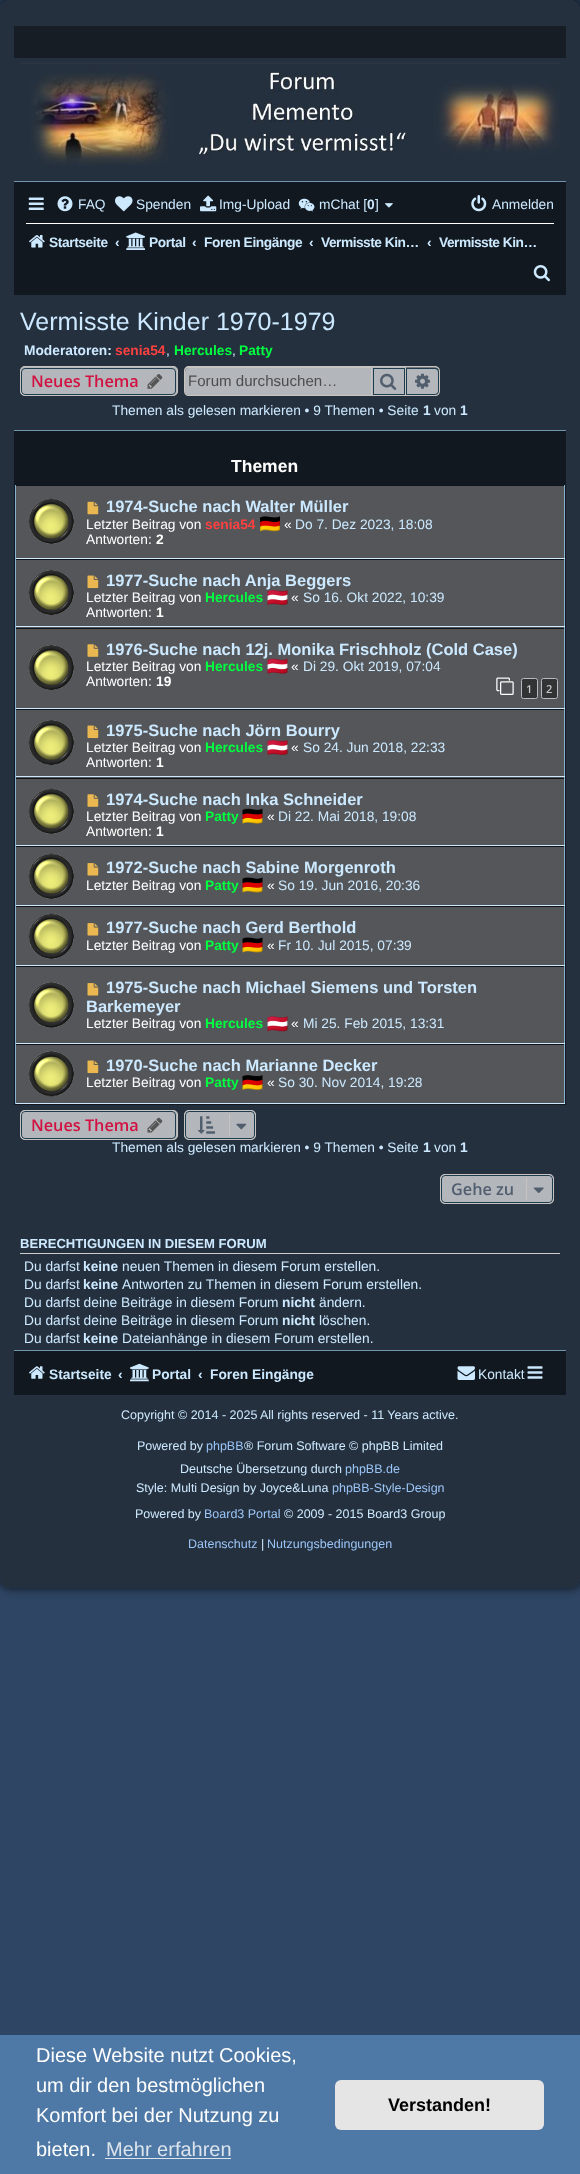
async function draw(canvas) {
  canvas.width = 580
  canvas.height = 2174
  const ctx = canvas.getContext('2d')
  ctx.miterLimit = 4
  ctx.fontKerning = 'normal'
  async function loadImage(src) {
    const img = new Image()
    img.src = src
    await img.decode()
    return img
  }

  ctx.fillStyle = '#2e4563'
  ctx.fillRect(0, 0, 580, 2174)
  ctx.save()
  ctx.beginPath()
  ctx.moveTo(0, 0)
  ctx.lineTo(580, 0)
  ctx.lineTo(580, 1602)
  ctx.lineTo(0, 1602)
  ctx.closePath()
  ctx.moveTo(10, 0)
  ctx.lineTo(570, 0)
  ctx.bezierCurveTo(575.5, 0, 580, 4.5, 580, 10)
  ctx.lineTo(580, 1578)
  ctx.bezierCurveTo(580, 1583.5, 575.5, 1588, 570, 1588)
  ctx.lineTo(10, 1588)
  ctx.bezierCurveTo(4.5, 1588, 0, 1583.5, 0, 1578)
  ctx.lineTo(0, 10)
  ctx.bezierCurveTo(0, 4.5, 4.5, 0, 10, 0)
  ctx.closePath()
  ctx.clip('evenodd')
  ctx.fillStyle = '#0000009e'
  ctx.filter = 'blur(4px)'
  ctx.beginPath()
  ctx.roundRect(-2, -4, 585, 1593, 13)
  ctx.fill()
  ctx.filter = 'none'
  ctx.restore()
  ctx.fillStyle = '#1c1c1c85'
  ctx.beginPath()
  ctx.roundRect(0, 0, 580, 1588, 10)
  ctx.fill()
  ctx.fillStyle = '#161d25'
  ctx.fillRect(14, 26, 552, 32)
  ctx.drawImage(await loadImage('image0.png'), 20, 62, 540, 104)
  ctx.fillStyle = '#12181f'
  ctx.fillRect(14, 182, 552, 113)
  ctx.fillStyle = '#6f95b0'
  ctx.fillRect(14, 181, 552, 1)
  ctx.drawImage(await loadImage('image1.png'), 28, 197, 16, 13)
  ctx.drawImage(await loadImage('image2.png'), 57, 196, 16, 16)
  ctx.font = '13.75px Liberation Sans'
  ctx.fillStyle = '#cce9ff'
  ctx.fillText('FAQ', 78, 209)
  ctx.drawImage(await loadImage('image3.png'), 115, 196, 18, 16)
  ctx.fillText('Spenden', 136, 209)
  ctx.drawImage(await loadImage('image4.png'), 200, 195, 17, 17)
  ctx.fillText('Img-Upload', 219, 209)
  ctx.drawImage(await loadImage('image5.png'), 298, 198, 17, 14)
  ctx.fillText('mChat [', 319, 209)
  ctx.font = 'bold 13.75px Liberation Sans'
  ctx.fillText('0', 367, 209)
  ctx.font = '13.75px Liberation Sans'
  ctx.fillText(']', 375, 209)
  ctx.drawImage(await loadImage('image6.png'), 385, 203, 8, 5)
  ctx.drawImage(await loadImage('image7.png'), 471, 195, 16, 17)
  ctx.fillText('Anmelden', 492, 209)
  ctx.fillStyle = '#fff'
  ctx.fillRect(26, 223, 528, 1)
  ctx.drawImage(await loadImage('image8.png'), 29, 235, 16, 13)
  ctx.letterSpacing = '-0.4px'
  ctx.font = 'bold 13.75px Liberation Sans'
  ctx.fillStyle = '#cce9ff'
  ctx.fillText('Startseite', 49, 247)
  ctx.letterSpacing = '0px'
  ctx.fillText('‹', 115, 247)
  ctx.drawImage(await loadImage('image9.png'), 126, 232, 19, 18)
  ctx.letterSpacing = '-0.4px'
  ctx.fillText('Portal', 149, 247)
  ctx.letterSpacing = '0px'
  ctx.fillText('‹', 192, 247)
  ctx.letterSpacing = '-0.4px'
  ctx.fillText('Foren Eingänge', 204, 247)
  ctx.letterSpacing = '0px'
  ctx.fillText('‹', 309, 247)
  ctx.letterSpacing = '-0.5px'
  ctx.fillText('Vermisste Kin…', 321, 247)
  ctx.letterSpacing = '0px'
  ctx.fillText('‹', 427, 247)
  ctx.letterSpacing = '-0.5px'
  ctx.fillText('Vermisste Kin…', 439, 247)
  ctx.drawImage(await loadImage('image10.png'), 533, 265, 17, 17)
  ctx.letterSpacing = '0px'
  ctx.font = '25px Liberation Sans'
  ctx.fillText('Vermisste Kinder 1970-1979', 20, 330)
  ctx.font = 'bold 13.75px Liberation Sans'
  ctx.fillText('Moderatoren:', 24, 355)
  ctx.fillStyle = '#ff4040'
  ctx.fillText('senia54', 115, 355)
  ctx.font = '13.75px Liberation Sans'
  ctx.fillStyle = '#cce9ff'
  ctx.fillText(',', 166, 355)
  ctx.font = 'bold 13.75px Liberation Sans'
  ctx.fillStyle = '#00ff40'
  ctx.fillText('Hercules', 174, 355)
  ctx.font = '13.75px Liberation Sans'
  ctx.fillStyle = '#cce9ff'
  ctx.fillText(',', 232, 355)
  ctx.font = 'bold 13.75px Liberation Sans'
  ctx.fillStyle = '#00ff40'
  ctx.fillText('Patty', 239, 355)
  ctx.fillStyle = '#b3b6bb'
  ctx.beginPath()
  ctx.roundRect(20, 366, 158, 30, 5)
  ctx.fill()
  ctx.beginPath()
  ctx.roundRect(21.5, 368.5, 154, 26, 3.5)
  ctx.strokeStyle = '#1d3c50'
  ctx.stroke()
  ctx.beginPath()
  ctx.roundRect(20.5, 366.5, 157, 29, 4.5)
  ctx.strokeStyle = '#c7c3bf'
  ctx.stroke()
  ctx.font = '600 16.25px Open Sans'
  ctx.fillStyle = '#d31141'
  ctx.fillText('Neues Thema', 31, 387)
  ctx.drawImage(await loadImage('image11.png'), 147, 374, 16, 15)
  ctx.fillStyle = '#b3b6bb'
  ctx.beginPath()
  ctx.roundRect(185, 368, 186, 27, [4, 0, 0, 4])
  ctx.fill()
  ctx.fillStyle = '#c7c3bf'
  ctx.beginPath()
  ctx.moveTo(189, 366)
  ctx.lineTo(371, 366)
  ctx.lineTo(371, 396)
  ctx.lineTo(189, 396)
  ctx.bezierCurveTo(186, 396, 184, 394, 184, 391)
  ctx.lineTo(184, 371)
  ctx.bezierCurveTo(184, 368, 186, 366, 189, 366)
  ctx.closePath()
  ctx.moveTo(189, 368)
  ctx.lineTo(371, 368)
  ctx.lineTo(371, 395)
  ctx.lineTo(189, 395)
  ctx.bezierCurveTo(187, 395, 185, 393, 185, 391)
  ctx.lineTo(185, 371)
  ctx.bezierCurveTo(185, 369, 187, 368, 189, 368)
  ctx.closePath()
  ctx.fill('evenodd')
  ctx.font = '15.1px Liberation Sans'
  ctx.fillStyle = '#4d4d4e'
  ctx.fillText('Forum durchsuchen…', 188, 386)
  ctx.fillStyle = '#b3b6bb'
  ctx.fillRect(372, 367, 33, 28)
  ctx.strokeStyle = '#1d3c50'
  ctx.strokeRect(373.5, 368.5, 31, 26)
  ctx.strokeStyle = '#c7c3bf'
  ctx.strokeRect(371.5, 366.5, 34, 29)
  ctx.drawImage(await loadImage('image12.png'), 380, 373, 17, 17)
  ctx.beginPath()
  ctx.roundRect(406.5, 368.5, 32, 26, [0, 3.5, 3.5, 0])
  ctx.fill()
  ctx.strokeStyle = '#1d3c50'
  ctx.stroke()
  ctx.fillStyle = '#c7c3bf'
  ctx.beginPath()
  ctx.moveTo(406, 366)
  ctx.lineTo(435, 366)
  ctx.bezierCurveTo(438, 366, 440, 368.5, 440, 371)
  ctx.lineTo(440, 391)
  ctx.bezierCurveTo(440, 394, 438, 396, 435, 396)
  ctx.lineTo(406, 396)
  ctx.closePath()
  ctx.moveTo(406, 367.5)
  ctx.lineTo(435, 367.5)
  ctx.bezierCurveTo(437, 367.5, 439, 369, 439, 371)
  ctx.lineTo(439, 391)
  ctx.bezierCurveTo(439, 393.5, 437, 395, 435, 395)
  ctx.lineTo(406, 395)
  ctx.closePath()
  ctx.fill('evenodd')
  ctx.drawImage(await loadImage('image13.png'), 415, 373, 15, 16)
  ctx.font = '13.75px Liberation Sans'
  ctx.fillStyle = '#cce9ff'
  ctx.fillText('Themen als gelesen markieren • 9 Themen • Seite', 112, 415)
  ctx.font = 'bold 13.75px Liberation Sans'
  ctx.fillText('1', 423, 415)
  ctx.font = '13.75px Liberation Sans'
  ctx.fillText('von', 434, 415)
  ctx.font = 'bold 13.75px Liberation Sans'
  ctx.fillText('1', 460, 415)
  ctx.fillStyle = '#12181f'
  ctx.fillRect(14, 431, 552, 674)
  ctx.fillStyle = '#6f95b0'
  ctx.fillRect(14, 430, 552, 1)
  ctx.save()
  ctx.beginPath()
  ctx.rect(15, 460, 550, 25)
  ctx.clip()
  ctx.font = 'bold 17.5px Liberation Sans'
  ctx.fillStyle = '#fff'
  ctx.fillText('Themen', 231, 472)
  ctx.restore()
  ctx.fillStyle = '#545659'
  ctx.fillRect(16, 486, 548, 72)
  ctx.fillStyle = '#0f141b'
  ctx.fillRect(15, 485, 550, 1)
  ctx.fillStyle = '#88b4d4'
  ctx.fillRect(564, 485, 1, 74)
  ctx.fillStyle = '#cce9ff'
  ctx.fillRect(15, 558, 550, 1)
  ctx.fillStyle = '#88b4d4'
  ctx.fillRect(15, 485, 1, 74)
  ctx.drawImage(await loadImage('image14.png'), 28, 498, 46, 46)
  ctx.drawImage(await loadImage('image15.png'), 87, 501, 12, 14)
  ctx.font = 'bold 16.5px Liberation Sans'
  ctx.fillStyle = '#cce9ff'
  ctx.fillText('1974-Suche nach Walter Müller', 106, 512)
  ctx.font = '13.75px Liberation Sans'
  ctx.fillStyle = '#fff'
  ctx.fillText('Letzter Beitrag von', 86, 529)
  ctx.font = 'bold 13.75px Liberation Sans'
  ctx.fillStyle = '#ff4040'
  ctx.fillText('senia54', 205, 529)
  ctx.drawImage(await loadImage('image16.png'), 260, 516, 20, 16)
  ctx.font = '13.75px Liberation Sans'
  ctx.fillStyle = '#fff'
  ctx.fillText('«', 284, 529)
  ctx.fillStyle = '#cce9ff'
  ctx.fillText('Do 7. Dez 2023, 18:08', 295, 529)
  ctx.fillStyle = '#fff'
  ctx.fillText('Antworten:', 86, 544)
  ctx.font = 'bold 13.75px Liberation Sans'
  ctx.fillText('2', 156, 544)
  ctx.fillStyle = '#545659'
  ctx.fillRect(16, 560, 548, 68)
  ctx.fillStyle = '#0f141b'
  ctx.fillRect(15, 559, 550, 1)
  ctx.fillStyle = '#88b4d4'
  ctx.fillRect(564, 559, 1, 69)
  ctx.fillStyle = '#cce9ff'
  ctx.fillRect(15, 626, 550, 1)
  ctx.fillStyle = '#88b4d4'
  ctx.fillRect(15, 559, 1, 69)
  ctx.drawImage(await loadImage('image17.png'), 28, 570, 46, 45)
  ctx.drawImage(await loadImage('image18.png'), 87, 575, 12, 14)
  ctx.font = 'bold 16.5px Liberation Sans'
  ctx.fillStyle = '#cce9ff'
  ctx.fillText('1977-Suche nach Anja Beggers', 106, 586)
  ctx.font = '13.75px Liberation Sans'
  ctx.fillStyle = '#fff'
  ctx.fillText('Letzter Beitrag von', 86, 602)
  ctx.font = 'bold 13.75px Liberation Sans'
  ctx.fillStyle = '#00ff40'
  ctx.fillText('Hercules', 205, 602)
  ctx.drawImage(await loadImage('image19.png'), 267, 590, 21, 15)
  ctx.font = '13.75px Liberation Sans'
  ctx.fillStyle = '#fff'
  ctx.fillText('«', 291, 602)
  ctx.fillStyle = '#cce9ff'
  ctx.fillText('So 16. Okt 2022, 10:39', 303, 602)
  ctx.fillStyle = '#fff'
  ctx.fillText('Antworten:', 86, 617)
  ctx.font = 'bold 13.75px Liberation Sans'
  ctx.fillText('1', 156, 617)
  ctx.fillStyle = '#545659'
  ctx.fillRect(16, 629, 548, 79)
  ctx.fillStyle = '#0f141b'
  ctx.fillRect(15, 628, 550, 1)
  ctx.fillStyle = '#88b4d4'
  ctx.fillRect(564, 628, 1, 81)
  ctx.fillStyle = '#cce9ff'
  ctx.fillRect(15, 708, 550, 1)
  ctx.fillStyle = '#88b4d4'
  ctx.fillRect(15, 628, 1, 81)
  ctx.drawImage(await loadImage('image20.png'), 28, 645, 46, 45)
  ctx.drawImage(await loadImage('image21.png'), 87, 644, 12, 13)
  ctx.font = 'bold 16.5px Liberation Sans'
  ctx.fillStyle = '#cce9ff'
  ctx.fillText('1976-Suche nach 12j. Monika Frischholz (Cold Case)', 106, 655)
  ctx.font = '13.75px Liberation Sans'
  ctx.fillStyle = '#fff'
  ctx.fillText('Letzter Beitrag von', 86, 671)
  ctx.font = 'bold 13.75px Liberation Sans'
  ctx.fillStyle = '#00ff40'
  ctx.fillText('Hercules', 205, 671)
  ctx.drawImage(await loadImage('image22.png'), 267, 658, 21, 16)
  ctx.font = '13.75px Liberation Sans'
  ctx.fillStyle = '#fff'
  ctx.fillText('«', 291, 671)
  ctx.fillStyle = '#cce9ff'
  ctx.fillText('Di 29. Okt 2019, 07:04', 303, 671)
  ctx.fillStyle = '#fff'
  ctx.fillText('Antworten:', 86, 686)
  ctx.font = 'bold 13.75px Liberation Sans'
  ctx.fillText('19', 156, 686)
  ctx.drawImage(await loadImage('image23.png'), 496, 677, 18, 18)
  ctx.fillStyle = '#323334'
  ctx.beginPath()
  ctx.roundRect(521.5, 678.5, 16, 20, 2)
  ctx.fill()
  ctx.strokeStyle = '#b4bac0'
  ctx.stroke()
  ctx.font = '600 11px Open Sans'
  ctx.fillStyle = '#c7c7c7'
  ctx.fillText('1', 526, 693)
  ctx.fillStyle = '#323334'
  ctx.beginPath()
  ctx.roundRect(541.5, 678.5, 16, 20, 2)
  ctx.fill()
  ctx.stroke()
  ctx.fillStyle = '#c7c7c7'
  ctx.fillText('2', 546, 693)
  ctx.fillStyle = '#545659'
  ctx.fillRect(16, 710, 548, 68)
  ctx.fillStyle = '#0f141b'
  ctx.fillRect(15, 709, 550, 1)
  ctx.fillStyle = '#88b4d4'
  ctx.fillRect(564, 709, 1, 69)
  ctx.fillStyle = '#cce9ff'
  ctx.fillRect(15, 776, 550, 1)
  ctx.fillStyle = '#88b4d4'
  ctx.fillRect(15, 709, 1, 69)
  ctx.drawImage(await loadImage('image20.png'), 28, 720, 46, 45)
  ctx.drawImage(await loadImage('image18.png'), 87, 725, 12, 14)
  ctx.font = 'bold 16.5px Liberation Sans'
  ctx.fillStyle = '#cce9ff'
  ctx.fillText('1975-Suche nach Jörn Bourry', 106, 736)
  ctx.font = '13.75px Liberation Sans'
  ctx.fillStyle = '#fff'
  ctx.fillText('Letzter Beitrag von', 86, 752)
  ctx.font = 'bold 13.75px Liberation Sans'
  ctx.fillStyle = '#00ff40'
  ctx.fillText('Hercules', 205, 752)
  ctx.drawImage(await loadImage('image19.png'), 267, 740, 21, 15)
  ctx.font = '13.75px Liberation Sans'
  ctx.fillStyle = '#fff'
  ctx.fillText('«', 291, 752)
  ctx.fillStyle = '#cce9ff'
  ctx.fillText('So 24. Jun 2018, 22:33', 303, 752)
  ctx.fillStyle = '#fff'
  ctx.fillText('Antworten:', 86, 767)
  ctx.font = 'bold 13.75px Liberation Sans'
  ctx.fillText('1', 156, 767)
  ctx.fillStyle = '#545659'
  ctx.fillRect(16, 779, 548, 66)
  ctx.fillStyle = '#0f141b'
  ctx.fillRect(15, 778, 550, 1)
  ctx.fillStyle = '#88b4d4'
  ctx.fillRect(564, 778, 1, 68)
  ctx.fillStyle = '#cce9ff'
  ctx.fillRect(15, 845, 550, 1)
  ctx.fillStyle = '#88b4d4'
  ctx.fillRect(15, 778, 1, 68)
  ctx.drawImage(await loadImage('image24.png'), 28, 788, 46, 46)
  ctx.drawImage(await loadImage('image21.png'), 87, 794, 12, 13)
  ctx.font = 'bold 16.5px Liberation Sans'
  ctx.fillStyle = '#cce9ff'
  ctx.fillText('1974-Suche nach Inka Schneider', 106, 805)
  ctx.font = '13.75px Liberation Sans'
  ctx.fillStyle = '#fff'
  ctx.fillText('Letzter Beitrag von', 86, 821)
  ctx.font = 'bold 13.75px Liberation Sans'
  ctx.fillStyle = '#00ff40'
  ctx.fillText('Patty', 205, 821)
  ctx.drawImage(await loadImage('image25.png'), 242, 808, 21, 16)
  ctx.font = '13.75px Liberation Sans'
  ctx.fillStyle = '#fff'
  ctx.fillText('«', 267, 821)
  ctx.fillStyle = '#cce9ff'
  ctx.fillText('Di 22. Mai 2018, 19:08', 278, 821)
  ctx.fillStyle = '#fff'
  ctx.fillText('Antworten:', 86, 836)
  ctx.font = 'bold 13.75px Liberation Sans'
  ctx.fillText('1', 156, 836)
  ctx.fillStyle = '#545659'
  ctx.fillRect(16, 847, 548, 58)
  ctx.fillStyle = '#0f141b'
  ctx.fillRect(15, 846, 550, 1)
  ctx.fillStyle = '#88b4d4'
  ctx.fillRect(564, 846, 1, 60)
  ctx.fillStyle = '#cce9ff'
  ctx.fillRect(15, 905, 550, 1)
  ctx.fillStyle = '#88b4d4'
  ctx.fillRect(15, 846, 1, 60)
  ctx.drawImage(await loadImage('image14.png'), 28, 853, 46, 46)
  ctx.drawImage(await loadImage('image26.png'), 87, 863, 12, 13)
  ctx.font = 'bold 16.5px Liberation Sans'
  ctx.fillStyle = '#cce9ff'
  ctx.fillText('1972-Suche nach Sabine Morgenroth', 106, 873)
  ctx.font = '13.75px Liberation Sans'
  ctx.fillStyle = '#fff'
  ctx.fillText('Letzter Beitrag von', 86, 890)
  ctx.font = 'bold 13.75px Liberation Sans'
  ctx.fillStyle = '#00ff40'
  ctx.fillText('Patty', 205, 890)
  ctx.drawImage(await loadImage('image27.png'), 242, 877, 21, 16)
  ctx.font = '13.75px Liberation Sans'
  ctx.fillStyle = '#fff'
  ctx.fillText('«', 267, 890)
  ctx.fillStyle = '#cce9ff'
  ctx.fillText('So 19. Jun 2016, 20:36', 278, 890)
  ctx.fillStyle = '#545659'
  ctx.fillRect(16, 907, 548, 58)
  ctx.fillStyle = '#0f141b'
  ctx.fillRect(15, 906, 550, 1)
  ctx.fillStyle = '#88b4d4'
  ctx.fillRect(564, 906, 1, 60)
  ctx.fillStyle = '#cce9ff'
  ctx.fillRect(15, 965, 550, 1)
  ctx.fillStyle = '#88b4d4'
  ctx.fillRect(15, 906, 1, 60)
  ctx.drawImage(await loadImage('image28.png'), 28, 913, 46, 46)
  ctx.drawImage(await loadImage('image26.png'), 87, 923, 12, 13)
  ctx.font = 'bold 16.5px Liberation Sans'
  ctx.fillStyle = '#cce9ff'
  ctx.fillText('1977-Suche nach Gerd Berthold', 106, 933)
  ctx.font = '13.75px Liberation Sans'
  ctx.fillStyle = '#fff'
  ctx.fillText('Letzter Beitrag von', 86, 950)
  ctx.font = 'bold 13.75px Liberation Sans'
  ctx.fillStyle = '#00ff40'
  ctx.fillText('Patty', 205, 950)
  ctx.drawImage(await loadImage('image27.png'), 242, 937, 21, 16)
  ctx.font = '13.75px Liberation Sans'
  ctx.fillStyle = '#fff'
  ctx.fillText('«', 267, 950)
  ctx.fillStyle = '#cce9ff'
  ctx.fillText('Fr 10. Jul 2015, 07:39', 278, 950)
  ctx.fillStyle = '#545659'
  ctx.fillRect(16, 967, 548, 76)
  ctx.fillStyle = '#0f141b'
  ctx.fillRect(15, 966, 550, 1)
  ctx.fillStyle = '#88b4d4'
  ctx.fillRect(564, 966, 1, 78)
  ctx.fillStyle = '#cce9ff'
  ctx.fillRect(15, 1043, 550, 1)
  ctx.fillStyle = '#88b4d4'
  ctx.fillRect(15, 966, 1, 78)
  ctx.drawImage(await loadImage('image29.png'), 28, 982, 46, 46)
  ctx.drawImage(await loadImage('image26.png'), 87, 983, 12, 13)
  ctx.font = 'bold 16.5px Liberation Sans'
  ctx.fillStyle = '#cce9ff'
  ctx.fillText('1975-Suche nach Michael Siemens und Torsten', 106, 993)
  ctx.fillText('Barkemeyer', 86, 1012)
  ctx.font = '13.75px Liberation Sans'
  ctx.fillStyle = '#fff'
  ctx.fillText('Letzter Beitrag von', 86, 1028)
  ctx.font = 'bold 13.75px Liberation Sans'
  ctx.fillStyle = '#00ff40'
  ctx.fillText('Hercules', 205, 1028)
  ctx.drawImage(await loadImage('image30.png'), 267, 1016, 21, 16)
  ctx.font = '13.75px Liberation Sans'
  ctx.fillStyle = '#fff'
  ctx.fillText('«', 291, 1028)
  ctx.fillStyle = '#cce9ff'
  ctx.fillText('Mi 25. Feb 2015, 13:31', 303, 1028)
  ctx.fillStyle = '#545659'
  ctx.fillRect(16, 1045, 548, 58)
  ctx.fillStyle = '#0f141b'
  ctx.fillRect(15, 1044, 550, 1)
  ctx.fillStyle = '#88b4d4'
  ctx.fillRect(564, 1044, 1, 60)
  ctx.fillStyle = '#cce9ff'
  ctx.fillRect(15, 1103, 550, 1)
  ctx.fillStyle = '#88b4d4'
  ctx.fillRect(15, 1044, 1, 60)
  ctx.drawImage(await loadImage('image31.png'), 28, 1051, 46, 46)
  ctx.drawImage(await loadImage('image18.png'), 87, 1060, 12, 14)
  ctx.font = 'bold 16.5px Liberation Sans'
  ctx.fillStyle = '#cce9ff'
  ctx.fillText('1970-Suche nach Marianne Decker', 106, 1071)
  ctx.font = '13.75px Liberation Sans'
  ctx.fillStyle = '#fff'
  ctx.fillText('Letzter Beitrag von', 86, 1087)
  ctx.font = 'bold 13.75px Liberation Sans'
  ctx.fillStyle = '#00ff40'
  ctx.fillText('Patty', 205, 1087)
  ctx.drawImage(await loadImage('image32.png'), 242, 1075, 21, 15)
  ctx.font = '13.75px Liberation Sans'
  ctx.fillStyle = '#fff'
  ctx.fillText('«', 267, 1087)
  ctx.fillStyle = '#cce9ff'
  ctx.fillText('So 30. Nov 2014, 19:28', 278, 1087)
  ctx.fillStyle = '#b3b6bb'
  ctx.beginPath()
  ctx.roundRect(20, 1110, 158, 30, 5)
  ctx.fill()
  ctx.beginPath()
  ctx.roundRect(21.5, 1111.5, 154, 27, 3.5)
  ctx.strokeStyle = '#1d3c50'
  ctx.stroke()
  ctx.beginPath()
  ctx.roundRect(20.5, 1110.5, 157, 29, 4.5)
  ctx.strokeStyle = '#c7c3bf'
  ctx.stroke()
  ctx.font = '600 16.25px Open Sans'
  ctx.fillStyle = '#d31141'
  ctx.fillText('Neues Thema', 31, 1131)
  ctx.drawImage(await loadImage('image33.png'), 147, 1117, 16, 16)
  ctx.fillStyle = '#b3b6bb'
  ctx.beginPath()
  ctx.roundRect(184, 1110, 72, 30, 5)
  ctx.fill()
  ctx.beginPath()
  ctx.roundRect(185.5, 1111.5, 69, 27, 3.5)
  ctx.strokeStyle = '#1d3c50'
  ctx.stroke()
  ctx.beginPath()
  ctx.roundRect(184.5, 1110.5, 71, 29, 4.5)
  ctx.strokeStyle = '#c7c3bf'
  ctx.stroke()
  ctx.drawImage(await loadImage('image34.png'), 197, 1116, 18, 18)
  ctx.fillStyle = '#c7c3bf'
  ctx.fillRect(229, 1114, 1, 22)
  ctx.drawImage(await loadImage('image35.png'), 236, 1123, 11, 7)
  ctx.font = '13.75px Liberation Sans'
  ctx.fillStyle = '#cce9ff'
  ctx.fillText('Themen als gelesen markieren • 9 Themen • Seite', 112, 1152)
  ctx.font = 'bold 13.75px Liberation Sans'
  ctx.fillText('1', 423, 1152)
  ctx.font = '13.75px Liberation Sans'
  ctx.fillText('von', 434, 1152)
  ctx.font = 'bold 13.75px Liberation Sans'
  ctx.fillText('1', 460, 1152)
  ctx.fillStyle = '#b3b6bb'
  ctx.beginPath()
  ctx.roundRect(440, 1174, 114, 30, 5)
  ctx.fill()
  ctx.beginPath()
  ctx.roundRect(441.5, 1175.5, 111, 27, 3.5)
  ctx.strokeStyle = '#1d3c50'
  ctx.stroke()
  ctx.beginPath()
  ctx.roundRect(440.5, 1174.5, 113, 29, 4.5)
  ctx.strokeStyle = '#c7c3bf'
  ctx.stroke()
  ctx.font = '600 16.25px Open Sans'
  ctx.fillStyle = '#515e6e'
  ctx.fillText('Gehe zu', 451, 1195)
  ctx.fillStyle = '#c7c3bf'
  ctx.fillRect(526, 1178, 1, 22)
  ctx.drawImage(await loadImage('image36.png'), 533, 1187, 11, 6)
  ctx.fillStyle = '#ccc'
  ctx.fillRect(20, 1253, 540, 1)
  ctx.font = 'bold 13.1px Liberation Sans'
  ctx.fillStyle = '#cce9ff'
  ctx.fillText('BERECHTIGUNGEN IN DIESEM FORUM', 20, 1248)
  ctx.font = '13.75px Liberation Sans'
  ctx.fillText('Du darfst', 24, 1271)
  ctx.font = 'bold 13.75px Liberation Sans'
  ctx.fillText('keine', 83, 1271)
  ctx.font = '13.75px Liberation Sans'
  ctx.fillText('neuen Themen in diesem Forum erstellen.', 122, 1271)
  ctx.fillText('Du darfst', 24, 1289)
  ctx.font = 'bold 13.75px Liberation Sans'
  ctx.fillText('keine', 83, 1289)
  ctx.font = '13.75px Liberation Sans'
  ctx.fillText('Antworten zu Themen in diesem Forum erstellen.', 122, 1289)
  ctx.fillText('Du darfst deine Beiträge in diesem Forum', 24, 1307)
  ctx.font = 'bold 13.75px Liberation Sans'
  ctx.fillText('nicht', 282, 1307)
  ctx.font = '13.75px Liberation Sans'
  ctx.fillText('ändern.', 319, 1307)
  ctx.fillText('Du darfst deine Beiträge in diesem Forum', 24, 1325)
  ctx.font = 'bold 13.75px Liberation Sans'
  ctx.fillText('nicht', 282, 1325)
  ctx.font = '13.75px Liberation Sans'
  ctx.fillText('löschen.', 319, 1325)
  ctx.fillText('Du darfst', 24, 1343)
  ctx.font = 'bold 13.75px Liberation Sans'
  ctx.fillText('keine', 83, 1343)
  ctx.font = '13.75px Liberation Sans'
  ctx.fillText('Dateianhänge in diesem Forum erstellen.', 122, 1343)
  ctx.fillStyle = '#12181f'
  ctx.fillRect(14, 1351, 552, 44)
  ctx.fillStyle = '#6f95b0'
  ctx.fillRect(14, 1350, 552, 1)
  ctx.drawImage(await loadImage('image37.png'), 29, 1366, 16, 13)
  ctx.font = 'bold 13.75px Liberation Sans'
  ctx.fillStyle = '#cce9ff'
  ctx.fillText('Startseite', 49, 1379)
  ctx.fillText('‹', 118, 1379)
  ctx.drawImage(await loadImage('image38.png'), 130, 1363, 19, 19)
  ctx.fillText('Portal', 152, 1379)
  ctx.fillText('‹', 198, 1379)
  ctx.fillText('Foren Eingänge', 210, 1379)
  ctx.drawImage(await loadImage('image39.png'), 457, 1366, 18, 14)
  ctx.font = '13.75px Liberation Sans'
  ctx.fillText('Kontakt', 478, 1379)
  ctx.drawImage(await loadImage('image40.png'), 527, 1366, 16, 13)
  ctx.font = '12.5px Liberation Sans'
  ctx.fillText('Copyright © 2014 - 2025', 121, 1419)
  ctx.fillText('All rights reserved - 11 Years active.', 260, 1419)
  ctx.fillText('Powered by', 137, 1450)
  ctx.fillStyle = '#9ac5f7'
  ctx.fillText('phpBB', 206, 1450)
  ctx.fillStyle = '#cce9ff'
  ctx.fillText('® Forum Software © phpBB Limited', 244, 1450)
  ctx.fillText('Deutsche Übersetzung durch', 180, 1473)
  ctx.fillStyle = '#9ac5f7'
  ctx.fillText('phpBB.de', 345, 1473)
  ctx.fillStyle = '#cce9ff'
  ctx.fillText('Style: Multi Design by Joyce&Luna', 136, 1492)
  ctx.fillStyle = '#9ac5f7'
  ctx.fillText('phpBB-Style-Design', 332, 1492)
  ctx.fillStyle = '#cce9ff'
  ctx.fillText('Powered by', 135, 1518)
  ctx.fillStyle = '#9ac5f7'
  ctx.fillText('Board3 Portal', 204, 1518)
  ctx.fillStyle = '#cce9ff'
  ctx.fillText('© 2009 - 2015 Board3 Group', 284, 1518)
  ctx.fillStyle = '#9ac5f7'
  ctx.fillText('Datenschutz', 188, 1548)
  ctx.fillStyle = '#cce9ff'
  ctx.fillText('|', 261, 1548)
  ctx.fillStyle = '#9ac5f7'
  ctx.fillText('Nutzungsbedingungen', 267, 1548)
  ctx.fillStyle = '#4e78a5'
  ctx.fillRect(0, 2035, 580, 139)
  ctx.font = '20px Liberation Sans'
  ctx.fillStyle = '#fff'
  ctx.fillText('Diese Website nutzt Cookies,', 36, 2062)
  ctx.fillText('um dir den bestmöglichen', 36, 2092)
  ctx.fillText('Komfort bei der Nutzung zu', 36, 2122)
  ctx.fillText('bieten.', 36, 2156)
  ctx.fillStyle = '#dce4ed'
  ctx.fillText('Mehr erfahren', 106, 2156)
  ctx.fillRect(105, 2158, 126, 1)
  ctx.fillStyle = '#e5e5e5'
  ctx.beginPath()
  ctx.roundRect(335, 2080, 209, 50, 6)
  ctx.fill()
  ctx.font = 'bold 18px Liberation Sans'
  ctx.fillStyle = '#000'
  ctx.fillText('Verstanden!', 388, 2111)
}

draw(document.querySelector('canvas'))
